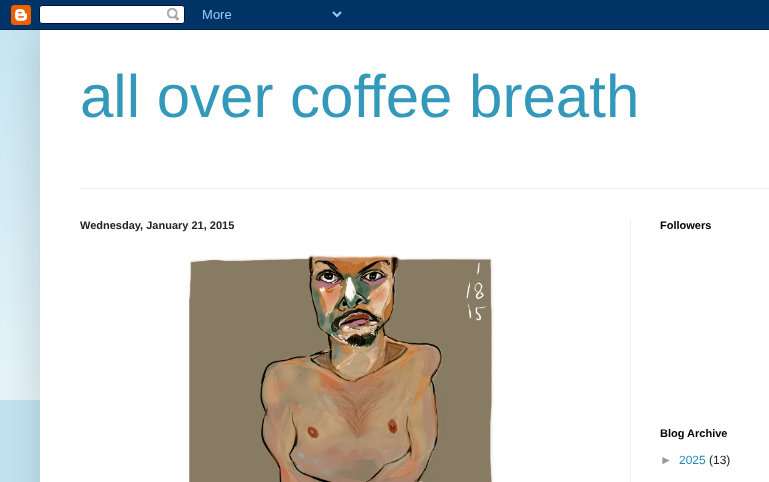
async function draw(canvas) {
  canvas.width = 769
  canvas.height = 482
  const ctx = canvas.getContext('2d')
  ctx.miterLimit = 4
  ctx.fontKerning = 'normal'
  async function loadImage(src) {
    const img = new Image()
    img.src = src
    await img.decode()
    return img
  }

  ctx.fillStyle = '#c2e4f1'
  ctx.fillRect(0, 0, 769, 482)
  ctx.drawImage(await loadImage('image1.png'), 0, 30, 40, 370)
  ctx.fillStyle = '#00000026'
  ctx.filter = 'blur(20px)'
  ctx.beginPath()
  ctx.rect(40, 30, 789, 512)
  ctx.fill()
  ctx.filter = 'none'
  ctx.drawImage(await loadImage('image0.png'), 0, 0, 769, 30)
  ctx.fillStyle = '#fff'
  ctx.fillRect(40, 30, 729, 452)
  ctx.font = '60px Liberation Sans'
  ctx.fillStyle = '#39b'
  ctx.fillText('all over coffee breath', 80, 117)
  ctx.fillStyle = '#eee'
  ctx.fillRect(80, 188, 689, 1)
  ctx.fillRect(630, 219, 1, 263)
  ctx.font = 'bold 11px Liberation Sans'
  ctx.fillStyle = '#222'
  ctx.fillText('Wednesday, January 21, 2015', 80, 229)
  ctx.drawImage(await loadImage('image2.png'), 185, 253, 309, 229)
  ctx.fillStyle = '#000'
  ctx.fillText('Followers', 660, 229)
  ctx.fillText('Blog Archive', 660, 437)
  ctx.font = '12px Liberation Sans'
  ctx.fillStyle = '#999'
  ctx.fillText('►', 660, 464)
  ctx.fillStyle = '#28b'
  ctx.fillText('2025', 679, 464)
  ctx.fillStyle = '#222'
  ctx.fillText('(13)', 709, 464)
}

draw(document.querySelector('canvas'))
